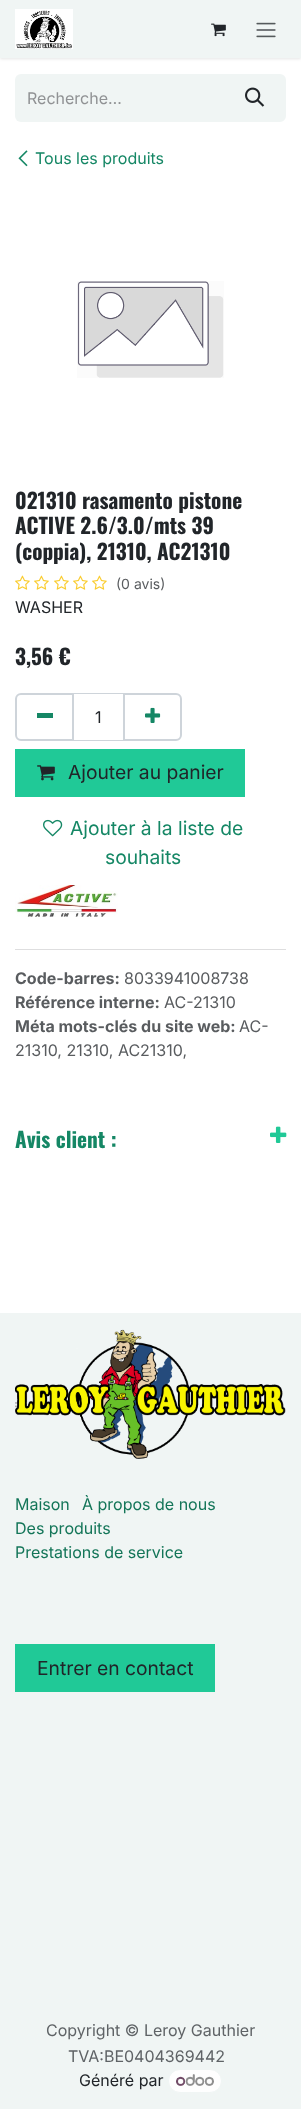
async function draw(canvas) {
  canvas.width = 301
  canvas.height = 2109
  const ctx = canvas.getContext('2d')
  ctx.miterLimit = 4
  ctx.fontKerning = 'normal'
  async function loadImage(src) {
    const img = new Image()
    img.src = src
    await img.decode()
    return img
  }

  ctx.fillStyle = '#fff'
  ctx.fillRect(0, 0, 301, 2109)
  ctx.fillStyle = '#0000001a'
  ctx.filter = 'blur(1.5px)'
  ctx.beginPath()
  ctx.rect(0, 1, 301, 58)
  ctx.fill()
  ctx.filter = 'none'
  ctx.fillStyle = '#f0f5f4'
  ctx.fillRect(0, 0, 301, 58)
  ctx.drawImage(await loadImage('image0.png'), 15, 9, 58, 40)
  ctx.drawImage(await loadImage('image1.png'), 211, 23, 15, 14)
  ctx.drawImage(await loadImage('image2.png'), 256, 22, 20, 16)
  ctx.beginPath()
  ctx.roundRect(15, 74, 209, 48, [6, 0, 0, 6])
  ctx.fill()
  ctx.font = '16px Inter'
  ctx.fillStyle = '#909294'
  ctx.fillText('Recherche…', 27, 104)
  ctx.fillStyle = '#f0f5f4'
  ctx.beginPath()
  ctx.roundRect(224, 75, 61, 46, [0, 5, 5, 0])
  ctx.fill()
  ctx.strokeStyle = '#f0f5f4'
  ctx.lineWidth = 2
  ctx.stroke()
  ctx.drawImage(await loadImage('image3.png'), 245, 87, 20, 20)
  ctx.drawImage(await loadImage('image4.png'), 18, 150, 10, 17)
  ctx.fillStyle = '#158765'
  ctx.fillText('Tous les produits', 35, 164)
  ctx.drawImage(await loadImage('image5.png'), 77, 281, 147, 97)
  ctx.font = 'bold 21.25px Oswald'
  ctx.fillStyle = '#212529'
  ctx.fillText('021310 rasamento pistone', 15, 509)
  ctx.fillText('ACTIVE 2.6/3.0/mts 39', 15, 534)
  ctx.fillText('(coppia), 21310, AC21310', 15, 560)
  ctx.drawImage(await loadImage('image6.png'), 15, 575, 15, 15)
  ctx.drawImage(await loadImage('image6.png'), 34, 575, 15, 15)
  ctx.drawImage(await loadImage('image6.png'), 54, 575, 15, 15)
  ctx.drawImage(await loadImage('image6.png'), 73, 575, 15, 15)
  ctx.drawImage(await loadImage('image6.png'), 92, 575, 15, 15)
  ctx.font = '14px Inter'
  ctx.fillStyle = '#595c5f'
  ctx.fillText('(0 avis)', 116, 589)
  ctx.font = '16px Inter'
  ctx.fillStyle = '#212529'
  ctx.fillText('WASHER', 15, 613)
  ctx.font = 'bold 21.25px Oswald'
  ctx.fillText('3,56 €', 15, 665)
  ctx.strokeStyle = '#ced4da'
  ctx.lineWidth = 1
  ctx.strokeRect(73.5, 693.5, 50, 47)
  ctx.beginPath()
  ctx.roundRect(16, 694, 57, 46, [5, 0, 0, 5])
  ctx.lineWidth = 2
  ctx.stroke()
  ctx.fillStyle = '#158765'
  ctx.fillRect(37, 713, 16, 5)
  ctx.font = '16px Inter'
  ctx.fillStyle = '#212529'
  ctx.fillText('1', 95, 723)
  ctx.beginPath()
  ctx.roundRect(124, 694, 57, 46, [0, 5, 5, 0])
  ctx.stroke()
  ctx.drawImage(await loadImage('image7.png'), 145, 707, 16, 16)
  ctx.fillStyle = '#20c997'
  ctx.beginPath()
  ctx.rect(16, 750, 228, 46)
  ctx.fill()
  ctx.strokeStyle = '#20c997'
  ctx.stroke()
  ctx.drawImage(await loadImage('image8.png'), 37, 765, 18, 16)
  ctx.font = '19.25px Inter'
  ctx.fillStyle = '#212529'
  ctx.fillText('Ajouter au panier', 68, 779)
  ctx.drawImage(await loadImage('image9.png'), 43, 819, 20, 18)
  ctx.fillStyle = '#158765'
  ctx.fillText('Ajouter à la liste de', 70, 835)
  ctx.fillText('souhaits', 105, 864)
  ctx.drawImage(await loadImage('image10.png'), 15, 885, 103, 32)
  ctx.fillStyle = '#dededf'
  ctx.fillRect(15, 949, 271, 1)
  ctx.font = 'bold 16px Inter'
  ctx.fillStyle = '#595c5f'
  ctx.fillText('Code-barres:', 15, 984)
  ctx.font = '16px Inter'
  ctx.fillText('8033941008738', 124, 984)
  ctx.font = 'bold 16px Inter'
  ctx.fillText('Référence interne:', 15, 1008)
  ctx.font = '16px Inter'
  ctx.fillText('AC-21310', 164, 1008)
  ctx.font = 'bold 16px Inter'
  ctx.fillText('Méta mots-clés du site web:', 15, 1032)
  ctx.font = '16px Inter'
  ctx.fillText('AC-', 239, 1032)
  ctx.fillText('21310, 21310, AC21310,', 15, 1056)
  ctx.font = 'bold 21.25px Oswald'
  ctx.fillStyle = '#158765'
  ctx.fillText('Avis client :', 15, 1148)
  ctx.drawImage(await loadImage('image11.png'), 270, 1126, 17, 17)
  ctx.fillStyle = '#f0f5f4'
  ctx.fillRect(0, 1313, 301, 796)
  ctx.drawImage(await loadImage('image12.png'), 15, 1329, 271, 130)
  ctx.font = '16px Inter'
  ctx.fillStyle = '#137558'
  ctx.fillText('Maison', 15, 1510)
  ctx.fillText('À propos de nous', 82, 1510)
  ctx.fillText('Des produits', 15, 1534)
  ctx.fillText('Prestations de service', 15, 1558)
  ctx.fillStyle = '#20c997'
  ctx.beginPath()
  ctx.rect(16, 1645, 198, 46)
  ctx.fill()
  ctx.stroke()
  ctx.font = '19.25px Inter'
  ctx.fillStyle = '#212529'
  ctx.fillText('Entrer en contact', 37, 1675)
  ctx.font = '16px Inter'
  ctx.fillStyle = '#5f6366'
  ctx.fillText('Copyright © Leroy Gauthier', 46, 2036)
  ctx.fillText('TVA:BE0404369442', 68, 2062)
  ctx.fillStyle = '#212529'
  ctx.fillText('Généré par', 79, 2086)
  ctx.fillStyle = '#fefefe'
  ctx.beginPath()
  ctx.roundRect(168.5, 2069.5, 53, 23, 11.5)
  ctx.fill()
  ctx.strokeStyle = '#f0f5f4'
  ctx.lineWidth = 1
  ctx.stroke()
  ctx.drawImage(await loadImage('image13.png'), 176, 2074, 38, 12)
}

draw(document.querySelector('canvas'))
